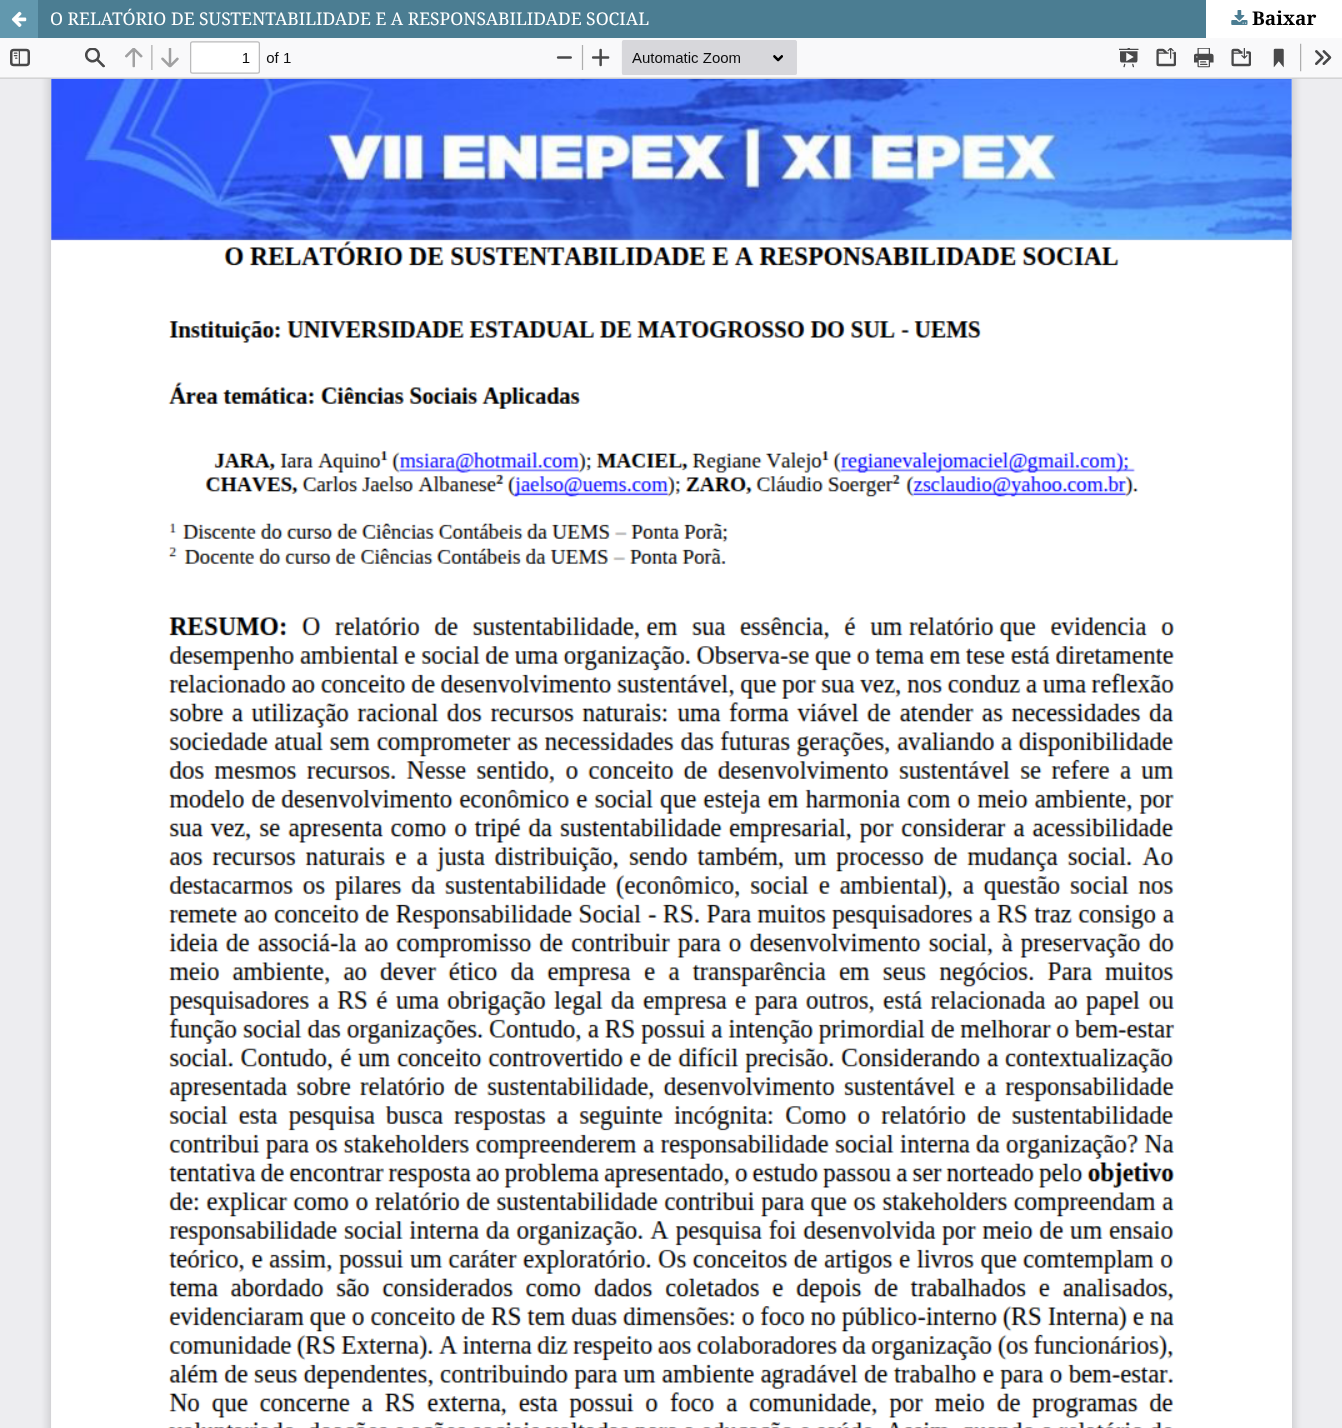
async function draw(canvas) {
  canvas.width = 1342
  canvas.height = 1428
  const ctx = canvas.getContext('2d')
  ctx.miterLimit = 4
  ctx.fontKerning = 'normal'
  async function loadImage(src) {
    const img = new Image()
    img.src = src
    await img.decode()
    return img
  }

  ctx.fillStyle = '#fff'
  ctx.fillRect(0, 0, 1342, 1428)
  ctx.fillStyle = '#4b7d92'
  ctx.fillRect(38, 0, 1168, 38)
  ctx.fillStyle = '#6298ae'
  ctx.fillRect(0, 0, 38, 38)
  ctx.drawImage(await loadImage('image0.png'), 11, 11, 16, 16)
  ctx.font = '17.5px Noto Serif'
  ctx.fillStyle = '#fff'
  ctx.fillText('O RELATÓRIO DE SUSTENTABILIDADE E A RESPONSABILIDADE SOCIAL', 50, 25)
  ctx.drawImage(await loadImage('image1.png'), 1231, 10, 17, 15)
  ctx.font = 'bold 19px Noto Serif'
  ctx.fillStyle = '#000'
  ctx.fillText('Baixar', 1252, 25)
  ctx.drawImage(await loadImage('image2.png'), 0, 38, 1342, 1390)
}

draw(document.querySelector('canvas'))
